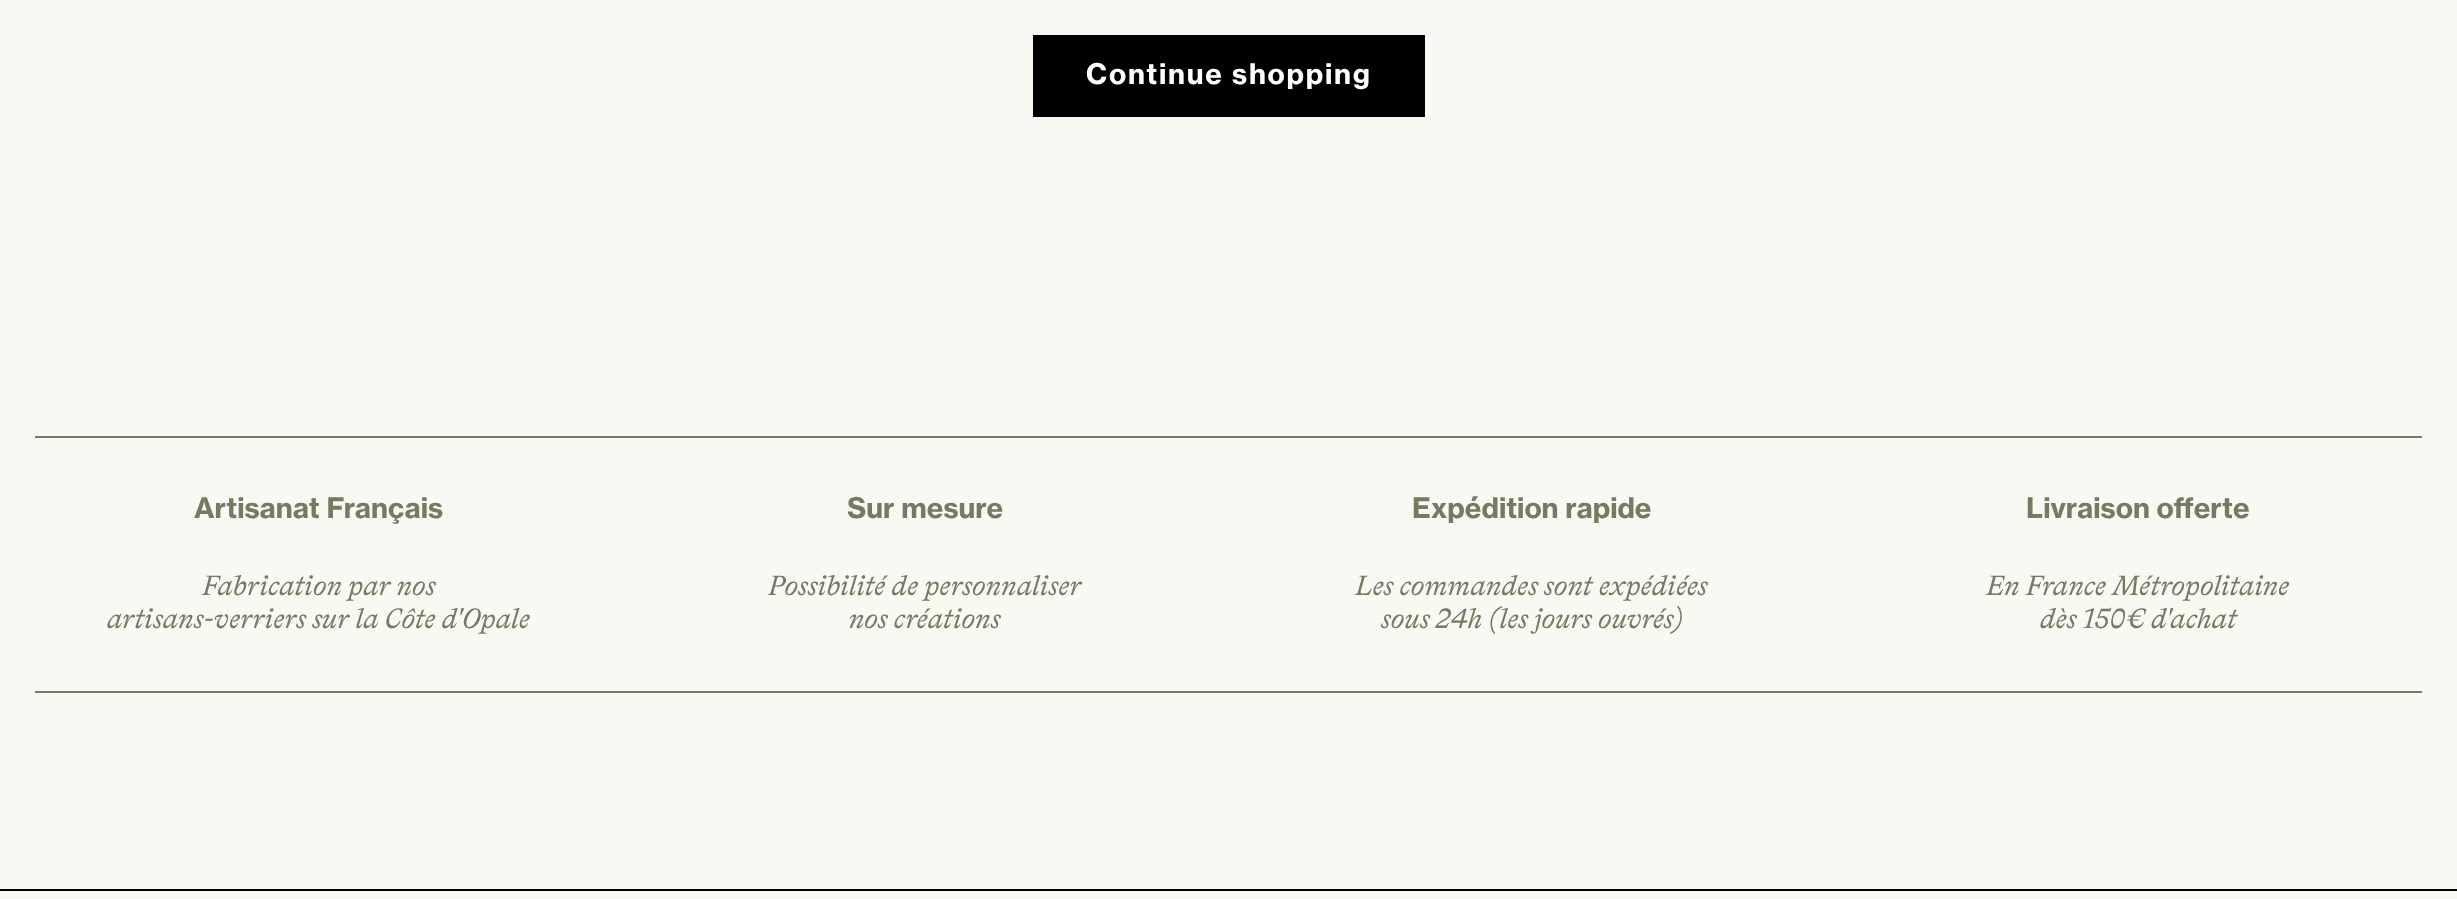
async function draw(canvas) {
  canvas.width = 2457
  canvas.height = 899
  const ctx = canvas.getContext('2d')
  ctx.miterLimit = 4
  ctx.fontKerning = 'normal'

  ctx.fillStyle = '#f9f8f3'
  ctx.fillRect(0, 0, 2457, 899)
  ctx.fillStyle = '#000'
  ctx.fillRect(1033, 35, 392, 82)
  ctx.letterSpacing = '1.75px'
  ctx.font = 'bold 28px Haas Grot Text'
  ctx.fillStyle = '#fff'
  ctx.fillText('Continue shopping', 1086, 84)
  ctx.fillStyle = '#777a62'
  ctx.fillRect(35, 436, 2387, 2)
  ctx.fillRect(35, 691, 2387, 2)
  ctx.letterSpacing = '0px'
  ctx.fillText('Artisanat Français', 194, 518)
  ctx.font = 'italic 28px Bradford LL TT'
  ctx.fillText('Fabrication par nos', 202, 595)
  ctx.fillText('artisans-verriers sur la Côte d\'Opale', 107, 628)
  ctx.font = 'bold 28px Haas Grot Text'
  ctx.fillText('Sur mesure', 847, 518)
  ctx.font = 'italic 28px Bradford LL TT'
  ctx.fillText('Possibilité de personnaliser', 768, 595)
  ctx.fillText('nos créations', 849, 628)
  ctx.font = 'bold 28px Haas Grot Text'
  ctx.fillText('Expédition rapide', 1412, 518)
  ctx.font = 'italic 28px Bradford LL TT'
  ctx.fillText('Les commandes sont expédiées', 1355, 595)
  ctx.fillText('sous 24h (les jours ouvrés)', 1381, 628)
  ctx.font = 'bold 28px Haas Grot Text'
  ctx.fillText('Livraison offerte', 2026, 518)
  ctx.font = 'italic 28px Bradford LL TT'
  ctx.fillText('En France Métropolitaine', 1986, 595)
  ctx.fillText('dès 150€ d\'achat', 2040, 628)
  ctx.fillStyle = '#000'
  ctx.fillRect(0, 889, 2457, 2)
}

draw(document.querySelector('canvas'))
